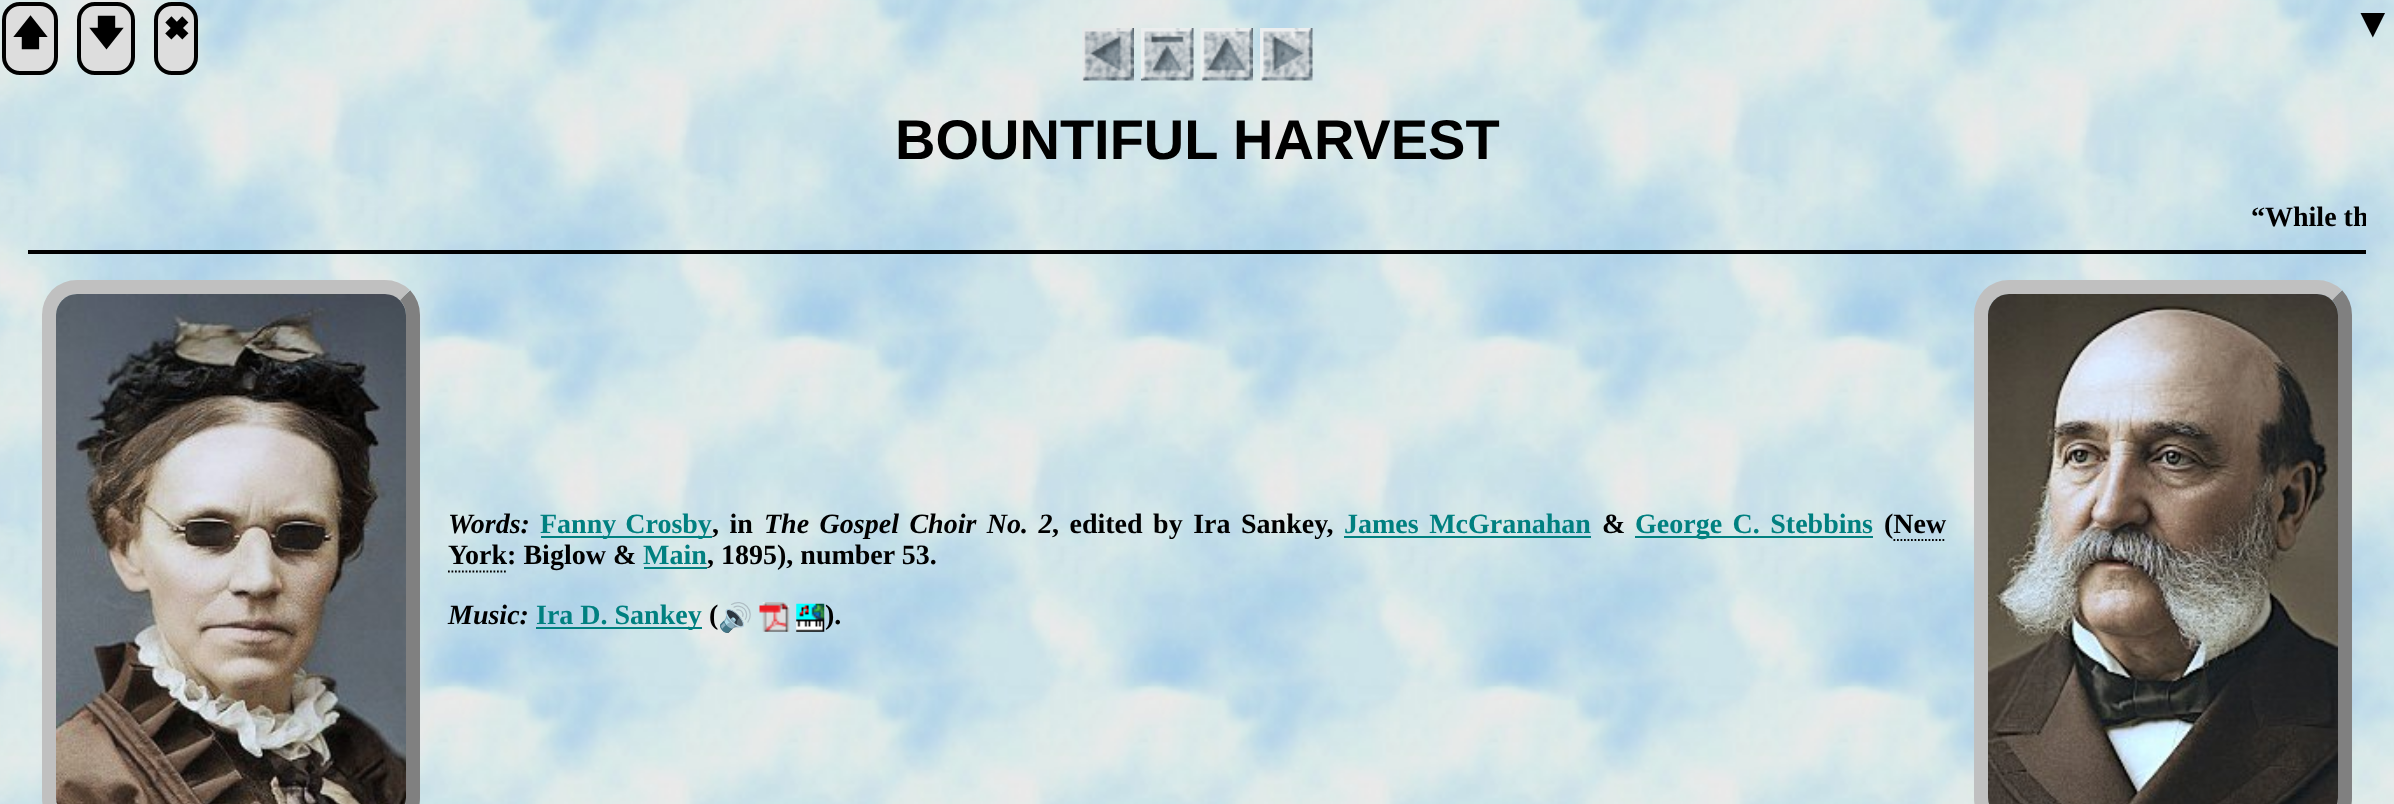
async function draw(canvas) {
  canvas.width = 2394
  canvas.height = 804
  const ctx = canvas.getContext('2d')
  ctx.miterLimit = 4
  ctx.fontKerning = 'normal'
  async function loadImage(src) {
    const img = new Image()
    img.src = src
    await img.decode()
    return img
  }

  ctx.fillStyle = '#fff'
  ctx.fillRect(0, 0, 2394, 804)
  ctx.drawImage(await loadImage('image0.png'), 0, 0, 2394, 804)
  ctx.fillStyle = '#ddd'
  ctx.beginPath()
  ctx.roundRect(4, 4, 52, 69, 16)
  ctx.fill()
  ctx.strokeStyle = '#000'
  ctx.lineWidth = 4
  ctx.stroke()
  ctx.font = 'bold 35px "Noto Sans Symbols 2"'
  ctx.fillStyle = '#000'
  ctx.fillText('🡅', 12, 45)
  ctx.fillStyle = '#ddd'
  ctx.beginPath()
  ctx.roundRect(79, 4, 54, 69, 16)
  ctx.fill()
  ctx.stroke()
  ctx.fillStyle = '#000'
  ctx.fillText('🡇', 88, 45)
  ctx.fillStyle = '#ddd'
  ctx.beginPath()
  ctx.roundRect(156, 4, 40, 69, 16)
  ctx.fill()
  ctx.stroke()
  ctx.font = 'bold 35px FreeSans'
  ctx.fillStyle = '#000'
  ctx.fillText('🞮', 164, 40)
  ctx.drawImage(await loadImage('image1.png'), 1082, 28, 52, 53)
  ctx.drawImage(await loadImage('image2.png'), 1141, 28, 53, 53)
  ctx.drawImage(await loadImage('image3.png'), 1200, 28, 53, 53)
  ctx.drawImage(await loadImage('image4.png'), 1260, 28, 53, 53)
  ctx.font = 'bold 42px Liberation Serif'
  ctx.fillText('▼', 2352, 37)
  ctx.font = 'bold 56px Liberation Sans'
  ctx.fillText('BOUNTIFUL HARVEST', 895, 159)
  ctx.font = 'bold 28px Liberation Serif'
  ctx.fillText('“', 2251, 226)
  ctx.save()
  ctx.beginPath()
  ctx.rect(28, 173, 2338, 77)
  ctx.clip()
  ctx.fillText('While th', 2265, 226)
  ctx.restore()
  ctx.fillRect(28, 250, 2338, 4)
  ctx.beginPath()
  ctx.moveTo(405, 295)
  ctx.bezierCurveTo(410, 300.5, 413, 307.5, 413, 315)
  ctx.lineTo(413, 798)
  ctx.bezierCurveTo(413, 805.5, 410, 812.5, 405, 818)
  ctx.bezierCurveTo(399.5, 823, 392.5, 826, 385, 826)
  ctx.lineTo(77, 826)
  ctx.bezierCurveTo(69.5, 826, 62.5, 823, 57, 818)
  ctx.strokeStyle = '#808080'
  ctx.lineWidth = 14
  ctx.stroke()
  ctx.beginPath()
  ctx.moveTo(57, 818)
  ctx.bezierCurveTo(52, 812.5, 49, 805.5, 49, 798)
  ctx.lineTo(49, 315)
  ctx.bezierCurveTo(49, 307.5, 52, 300.5, 57, 295)
  ctx.bezierCurveTo(62.5, 290, 69.5, 287, 77, 287)
  ctx.lineTo(385, 287)
  ctx.bezierCurveTo(392.5, 287, 399.5, 290, 405, 295)
  ctx.strokeStyle = '#c0c0c0'
  ctx.stroke()
  ctx.drawImage(await loadImage('image5.png'), 56, 294, 350, 510)
  ctx.font = 'italic bold 28px Liberation Serif'
  ctx.fillText('Words:', 448, 533)
  ctx.fillStyle = '#008080'
  ctx.fillRect(541, 536, 171, 2)
  ctx.wordSpacing = '2px'
  ctx.font = 'bold 28px Liberation Serif'
  ctx.fillText('Fanny Crosby', 540, 533)
  ctx.wordSpacing = '3.5px'
  ctx.fillStyle = '#000'
  ctx.fillText(', in', 712, 533)
  ctx.font = 'italic bold 28px Liberation Serif'
  ctx.fillText('The Gospel Choir No. 2', 764, 533)
  ctx.font = 'bold 28px Liberation Serif'
  ctx.fillText(', edited by Ira Sankey,', 1052, 533)
  ctx.fillStyle = '#008080'
  ctx.fillText('James McGranahan', 1344, 533)
  ctx.fillRect(1344, 536, 247, 2)
  ctx.wordSpacing = '0px'
  ctx.fillStyle = '#000'
  ctx.fillText('&', 1602, 533)
  ctx.fillStyle = '#008080'
  ctx.fillRect(1635, 536, 238, 2)
  ctx.wordSpacing = '3.5px'
  ctx.fillText('George C. Stebbins', 1635, 533)
  ctx.wordSpacing = '0px'
  ctx.fillStyle = '#000'
  ctx.fillText('(New', 1884, 533)
  ctx.beginPath()
  ctx.moveTo(1893.5, 540)
  ctx.lineTo(1946, 540)
  ctx.strokeStyle = '#000'
  ctx.lineWidth = 1.8
  ctx.setLineDash([1.75, 1.75])
  ctx.stroke()
  ctx.beginPath()
  ctx.moveTo(448, 571.5)
  ctx.lineTo(507.5, 571.5)
  ctx.stroke()
  ctx.fillText('York: Biglow &', 448, 564)
  ctx.fillStyle = '#008080'
  ctx.fillText('Main', 643, 564)
  ctx.fillRect(644, 567, 63, 2)
  ctx.fillStyle = '#000'
  ctx.fillText(', 1895), number 53.', 707, 564)
  ctx.font = 'italic bold 28px Liberation Serif'
  ctx.fillText('Music:', 448, 624)
  ctx.fillStyle = '#008080'
  ctx.fillRect(536, 627, 166, 2)
  ctx.font = 'bold 28px Liberation Serif'
  ctx.fillText('Ira D. Sankey', 536, 624)
  ctx.fillStyle = '#000'
  ctx.fillText('(', 709, 624)
  ctx.font = 'bold 28px Noto Color Emoji'
  ctx.fillStyle = '#00e'
  ctx.fillText('🔊', 718, 627)
  ctx.drawImage(await loadImage('image6.png'), 759, 602, 31, 30)
  ctx.drawImage(await loadImage('image7.png'), 796, 603, 29, 29)
  ctx.font = 'bold 28px Liberation Serif'
  ctx.fillStyle = '#000'
  ctx.fillText(').', 825, 624)
  ctx.beginPath()
  ctx.moveTo(2337, 295)
  ctx.bezierCurveTo(2342, 300.5, 2345, 307.5, 2345, 315)
  ctx.lineTo(2345, 798)
  ctx.bezierCurveTo(2345, 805.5, 2342, 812.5, 2337, 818)
  ctx.bezierCurveTo(2331.5, 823, 2324.5, 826, 2317, 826)
  ctx.lineTo(2009, 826)
  ctx.bezierCurveTo(2001.5, 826, 1994.5, 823, 1989, 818)
  ctx.strokeStyle = '#808080'
  ctx.lineWidth = 14
  ctx.setLineDash([])
  ctx.stroke()
  ctx.beginPath()
  ctx.moveTo(1989, 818)
  ctx.bezierCurveTo(1984, 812.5, 1981, 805.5, 1981, 798)
  ctx.lineTo(1981, 315)
  ctx.bezierCurveTo(1981, 307.5, 1984, 300.5, 1989, 295)
  ctx.bezierCurveTo(1994.5, 290, 2001.5, 287, 2009, 287)
  ctx.lineTo(2317, 287)
  ctx.bezierCurveTo(2324.5, 287, 2331.5, 290, 2337, 295)
  ctx.strokeStyle = '#c0c0c0'
  ctx.stroke()
  ctx.drawImage(await loadImage('image8.png'), 1988, 294, 350, 510)
}

draw(document.querySelector('canvas'))
